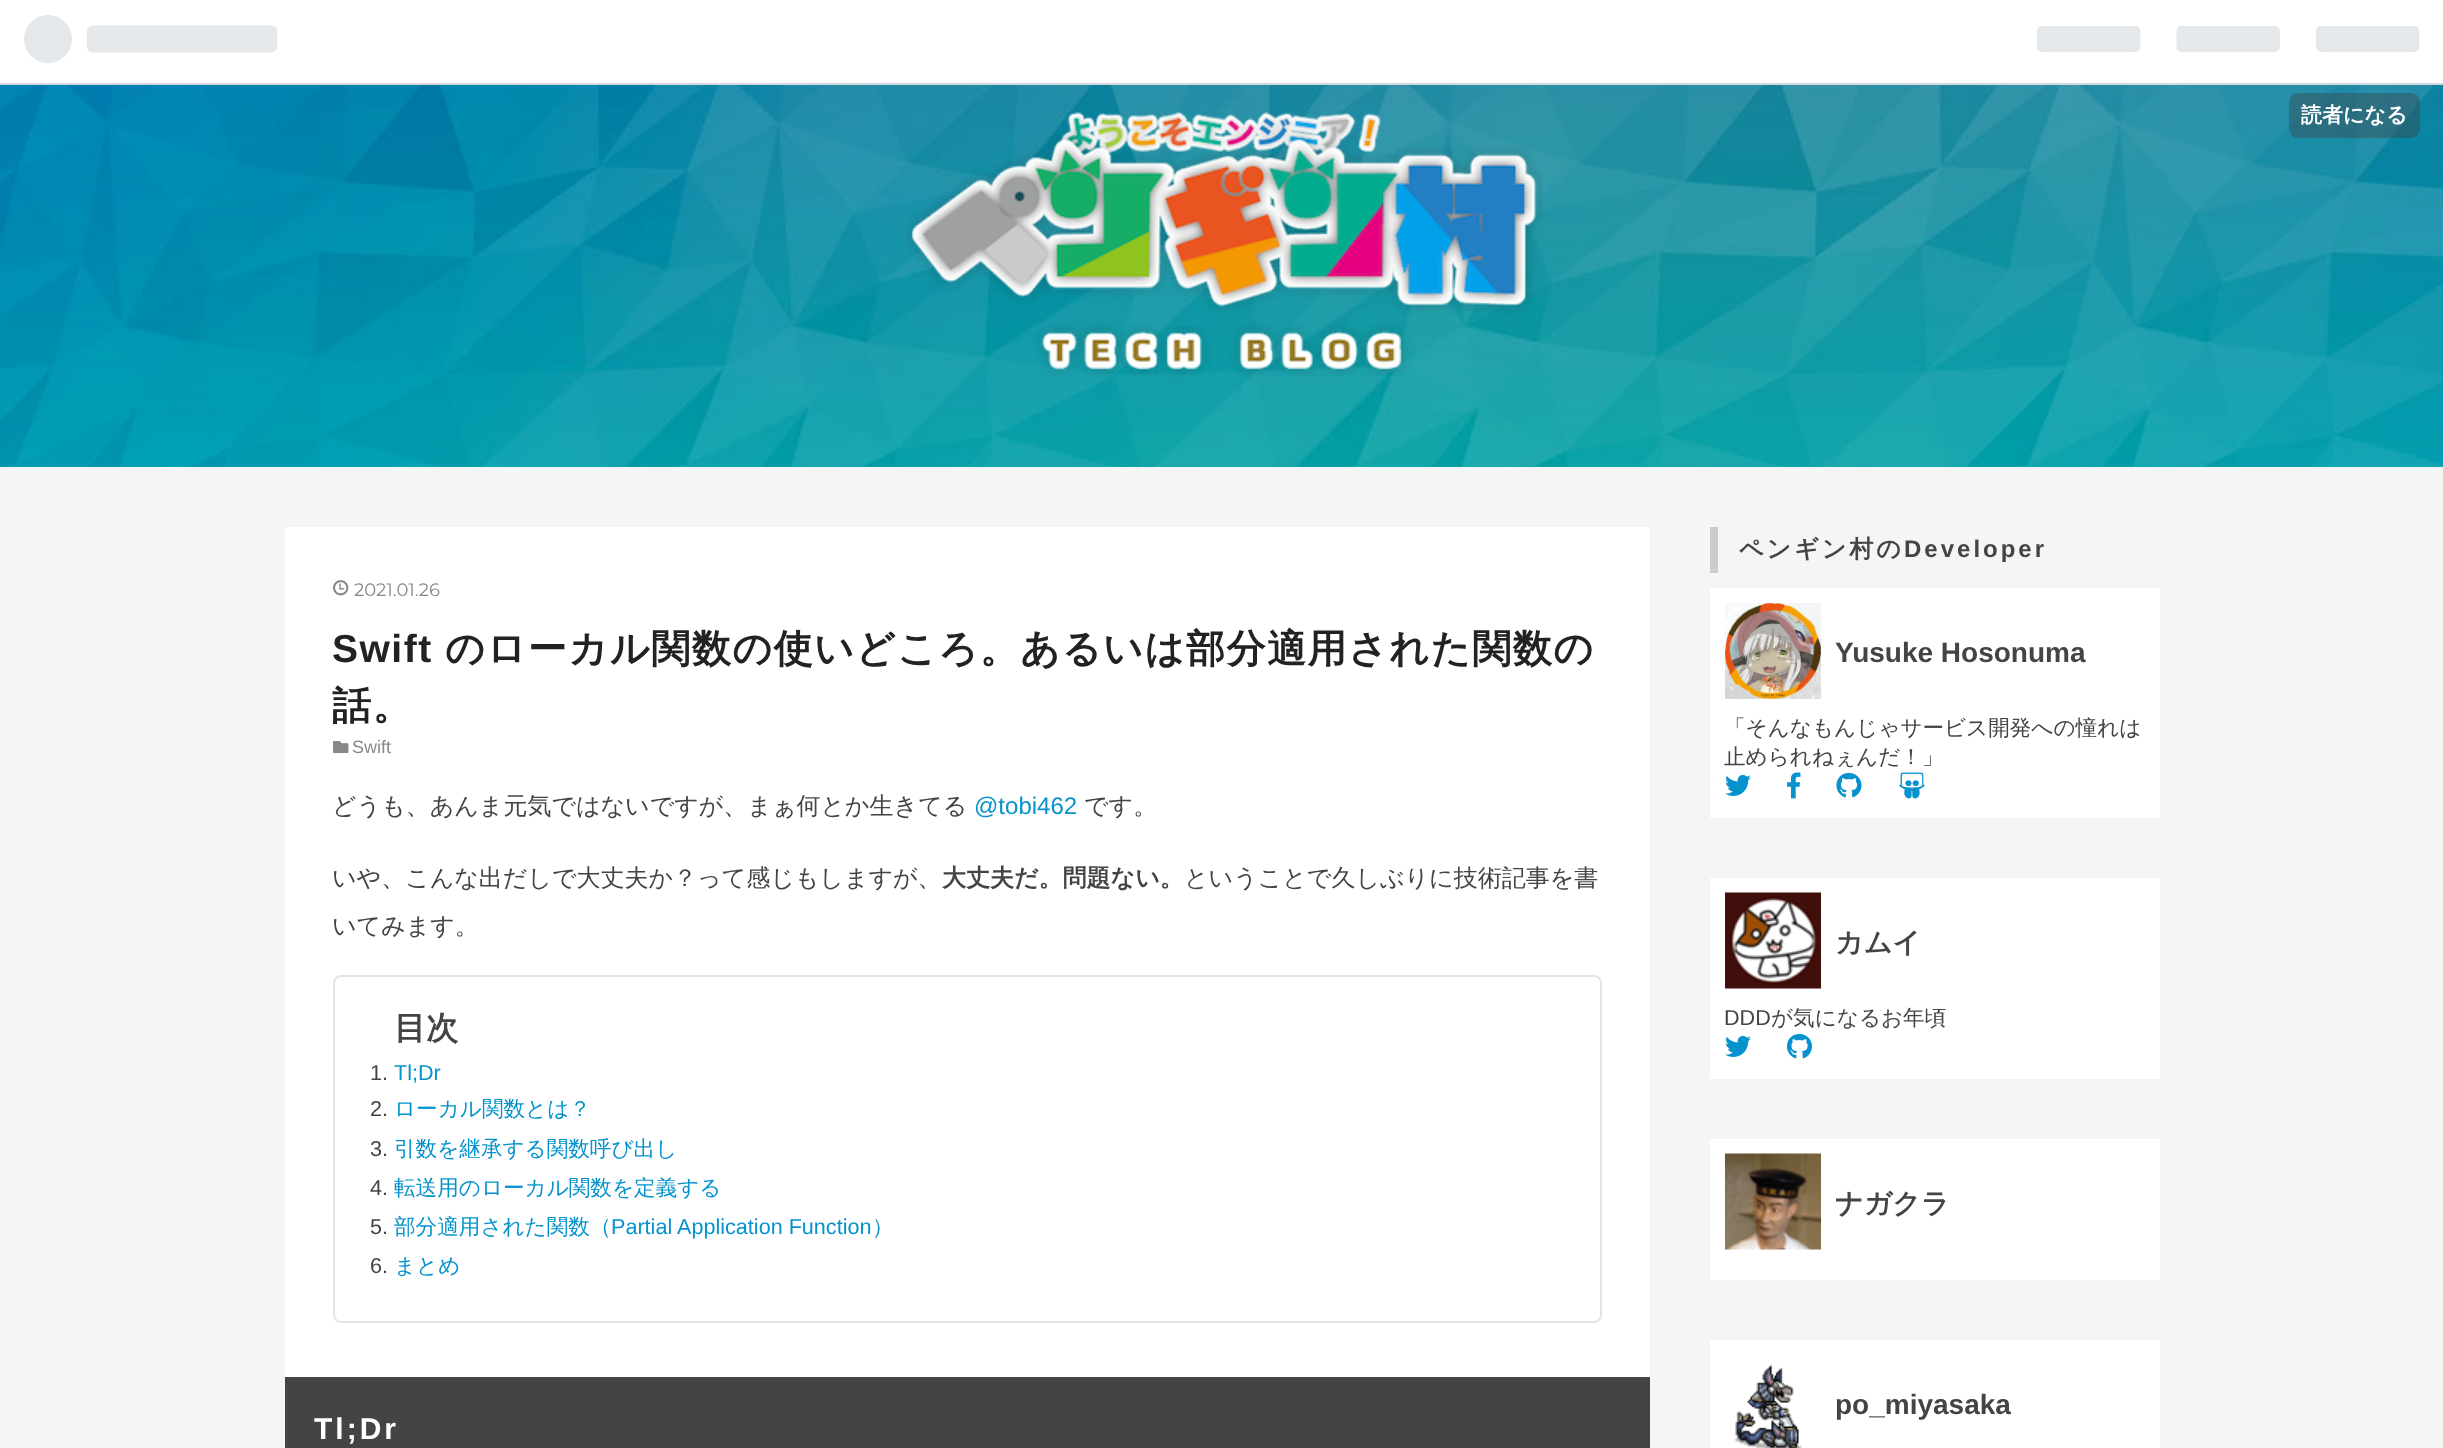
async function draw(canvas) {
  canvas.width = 2443
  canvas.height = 1448
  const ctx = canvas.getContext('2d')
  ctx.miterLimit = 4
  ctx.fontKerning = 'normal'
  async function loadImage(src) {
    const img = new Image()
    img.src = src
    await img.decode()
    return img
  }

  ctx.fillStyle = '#fff'
  ctx.fillRect(0, 0, 2443, 1448)
  ctx.drawImage(await loadImage('image0.png'), 0, 85, 2443, 382)
  ctx.fillStyle = '#d2d8dd'
  ctx.fillRect(0, 83, 2443, 2)
  ctx.drawImage(await loadImage('image1.png'), 24, 15, 254, 48)
  ctx.drawImage(await loadImage('image2.png'), 2037, 26, 383, 27)
  ctx.fillStyle = '#3d424566'
  ctx.beginPath()
  ctx.roundRect(2289, 93, 131, 45, 9)
  ctx.fill()
  ctx.font = 'bold 21px WenQuanYi Zen Hei'
  ctx.fillStyle = '#fff'
  ctx.fillText('読者になる', 2301, 122)
  ctx.drawImage(await loadImage('image3.png'), 906, 112, 637, 264)
  ctx.fillStyle = '#f5f5f5'
  ctx.fillRect(0, 467, 2443, 981)
  ctx.fillStyle = '#fff'
  ctx.fillRect(285, 527, 1365, 850)
  ctx.drawImage(await loadImage('image4.png'), 333, 580, 16, 16)
  ctx.font = '100 18px Montserrat'
  ctx.fillStyle = '#888'
  ctx.fillText('2021.01.26', 354, 596)
  ctx.letterSpacing = '1.5px'
  ctx.font = 'bold 39px Liberation Sans'
  ctx.fillStyle = '#222'
  ctx.fillText('Swift', 332, 662)
  ctx.font = 'bold 39px WenQuanYi Zen Hei'
  ctx.fillText('のローカル関数の使いどころ。あるいは部分適用された関数の', 445, 662)
  ctx.fillText('話。', 332, 719)
  ctx.drawImage(await loadImage('image5.png'), 333, 741, 16, 12)
  ctx.letterSpacing = '0px'
  ctx.font = '18px Liberation Sans'
  ctx.fillStyle = '#888'
  ctx.fillText('Swift', 352, 753)
  ctx.font = '500 24px WenQuanYi Zen Hei'
  ctx.fillStyle = '#444'
  ctx.fillText('どうも、あんま元気ではないですが、まぁ何とか生きてる', 332, 814)
  ctx.font = '24px Liberation Sans'
  ctx.fillStyle = '#0693cd'
  ctx.fillText('@tobi462', 974, 814)
  ctx.font = '500 24px WenQuanYi Zen Hei'
  ctx.fillStyle = '#444'
  ctx.fillText('です。', 1084, 814)
  ctx.fillText('いや、こんな出だしで大丈夫か？って感じもしますが、', 332, 886)
  ctx.font = 'bold 24px WenQuanYi Zen Hei'
  ctx.fillText('大丈夫だ。問題ない。', 942, 886)
  ctx.font = '500 24px WenQuanYi Zen Hei'
  ctx.fillText('ということで久しぶりに技術記事を書', 1184, 886)
  ctx.fillText('いてみます。', 332, 934)
  ctx.beginPath()
  ctx.roundRect(334, 976, 1267, 346, 7)
  ctx.strokeStyle = '#e4e4e4'
  ctx.lineWidth = 2
  ctx.stroke()
  ctx.font = 'bold 32px WenQuanYi Zen Hei'
  ctx.fillText('目次', 394, 1039)
  ctx.font = '21.6px Liberation Sans'
  ctx.fillText('1.', 370, 1080)
  ctx.fillStyle = '#0693cd'
  ctx.fillText('Tl;Dr', 394, 1080)
  ctx.fillStyle = '#444'
  ctx.fillText('2.', 370, 1116)
  ctx.font = '500 21.6px WenQuanYi Zen Hei'
  ctx.fillStyle = '#0693cd'
  ctx.fillText('ローカル関数とは？', 394, 1116)
  ctx.font = '21.6px Liberation Sans'
  ctx.fillStyle = '#444'
  ctx.fillText('3.', 370, 1156)
  ctx.font = '500 21.6px WenQuanYi Zen Hei'
  ctx.fillStyle = '#0693cd'
  ctx.fillText('引数を継承する関数呼び出し', 394, 1156)
  ctx.font = '21.6px Liberation Sans'
  ctx.fillStyle = '#444'
  ctx.fillText('4.', 370, 1195)
  ctx.font = '500 21.6px WenQuanYi Zen Hei'
  ctx.fillStyle = '#0693cd'
  ctx.fillText('転送用のローカル関数を定義する', 394, 1195)
  ctx.font = '21.6px Liberation Sans'
  ctx.fillStyle = '#444'
  ctx.fillText('5.', 370, 1234)
  ctx.font = '500 21.6px WenQuanYi Zen Hei'
  ctx.fillStyle = '#0693cd'
  ctx.fillText('部分適用された関数（', 394, 1234)
  ctx.font = '21.6px Liberation Sans'
  ctx.fillText('Partial Application Function', 611, 1234)
  ctx.font = '500 21.6px WenQuanYi Zen Hei'
  ctx.fillText('）', 872, 1234)
  ctx.font = '21.6px Liberation Sans'
  ctx.fillStyle = '#444'
  ctx.fillText('6.', 370, 1273)
  ctx.font = '500 21.6px WenQuanYi Zen Hei'
  ctx.fillStyle = '#0693cd'
  ctx.fillText('まとめ', 394, 1273)
  ctx.fillStyle = '#444'
  ctx.fillRect(285, 1377, 1365, 71)
  ctx.letterSpacing = '3px'
  ctx.font = 'bold 30px Liberation Sans'
  ctx.fillStyle = '#fff'
  ctx.fillText('Tl;Dr', 314, 1439)
  ctx.fillStyle = '#ccc'
  ctx.fillRect(1710, 527, 8, 46)
  ctx.font = 'bold 24px WenQuanYi Zen Hei'
  ctx.fillStyle = '#444'
  ctx.fillText('ペンギン村の', 1739, 557)
  ctx.font = 'bold 24px Liberation Sans'
  ctx.fillText('Developer', 1904, 557)
  ctx.fillStyle = '#fff'
  ctx.fillRect(1710, 588, 450, 230)
  ctx.drawImage(await loadImage('image6.png'), 1725, 603, 96, 96)
  ctx.letterSpacing = '0px'
  ctx.font = 'bold 28px Liberation Sans'
  ctx.fillStyle = '#444'
  ctx.fillText('Yusuke Hosonuma', 1835, 662)
  ctx.font = '500 21.6px WenQuanYi Zen Hei'
  ctx.fillText('「そんなもんじゃサービス開発への憧れは', 1724, 735)
  ctx.fillText('止められねぇんだ！」', 1724, 764)
  ctx.drawImage(await loadImage('image7.png'), 1725, 774, 26, 22)
  ctx.drawImage(await loadImage('image8.png'), 1787, 772, 14, 27)
  ctx.drawImage(await loadImage('image9.png'), 1836, 772, 26, 26)
  ctx.drawImage(await loadImage('image10.png'), 1899, 772, 26, 27)
  ctx.fillStyle = '#fff'
  ctx.fillRect(1710, 878, 450, 201)
  ctx.drawImage(await loadImage('image11.png'), 1725, 892, 96, 97)
  ctx.font = 'bold 28px WenQuanYi Zen Hei'
  ctx.fillStyle = '#444'
  ctx.fillText('カムイ', 1835, 952)
  ctx.font = '21.6px Liberation Sans'
  ctx.fillText('DDD', 1724, 1025)
  ctx.font = '500 21.6px WenQuanYi Zen Hei'
  ctx.fillText('が気になるお年頃', 1771, 1025)
  ctx.drawImage(await loadImage('image7.png'), 1725, 1035, 26, 22)
  ctx.drawImage(await loadImage('image12.png'), 1786, 1033, 26, 26)
  ctx.fillStyle = '#fff'
  ctx.fillRect(1710, 1139, 450, 141)
  ctx.drawImage(await loadImage('image13.png'), 1725, 1153, 96, 97)
  ctx.font = 'bold 28px WenQuanYi Zen Hei'
  ctx.fillStyle = '#444'
  ctx.fillText('ナガクラ', 1835, 1213)
  ctx.fillStyle = '#fff'
  ctx.fillRect(1710, 1340, 450, 108)
  ctx.drawImage(await loadImage('image14.png'), 1734, 1364, 68, 84)
  ctx.font = 'bold 28px Liberation Sans'
  ctx.fillStyle = '#444'
  ctx.fillText('po_miyasaka', 1835, 1414)
}

draw(document.querySelector('canvas'))
